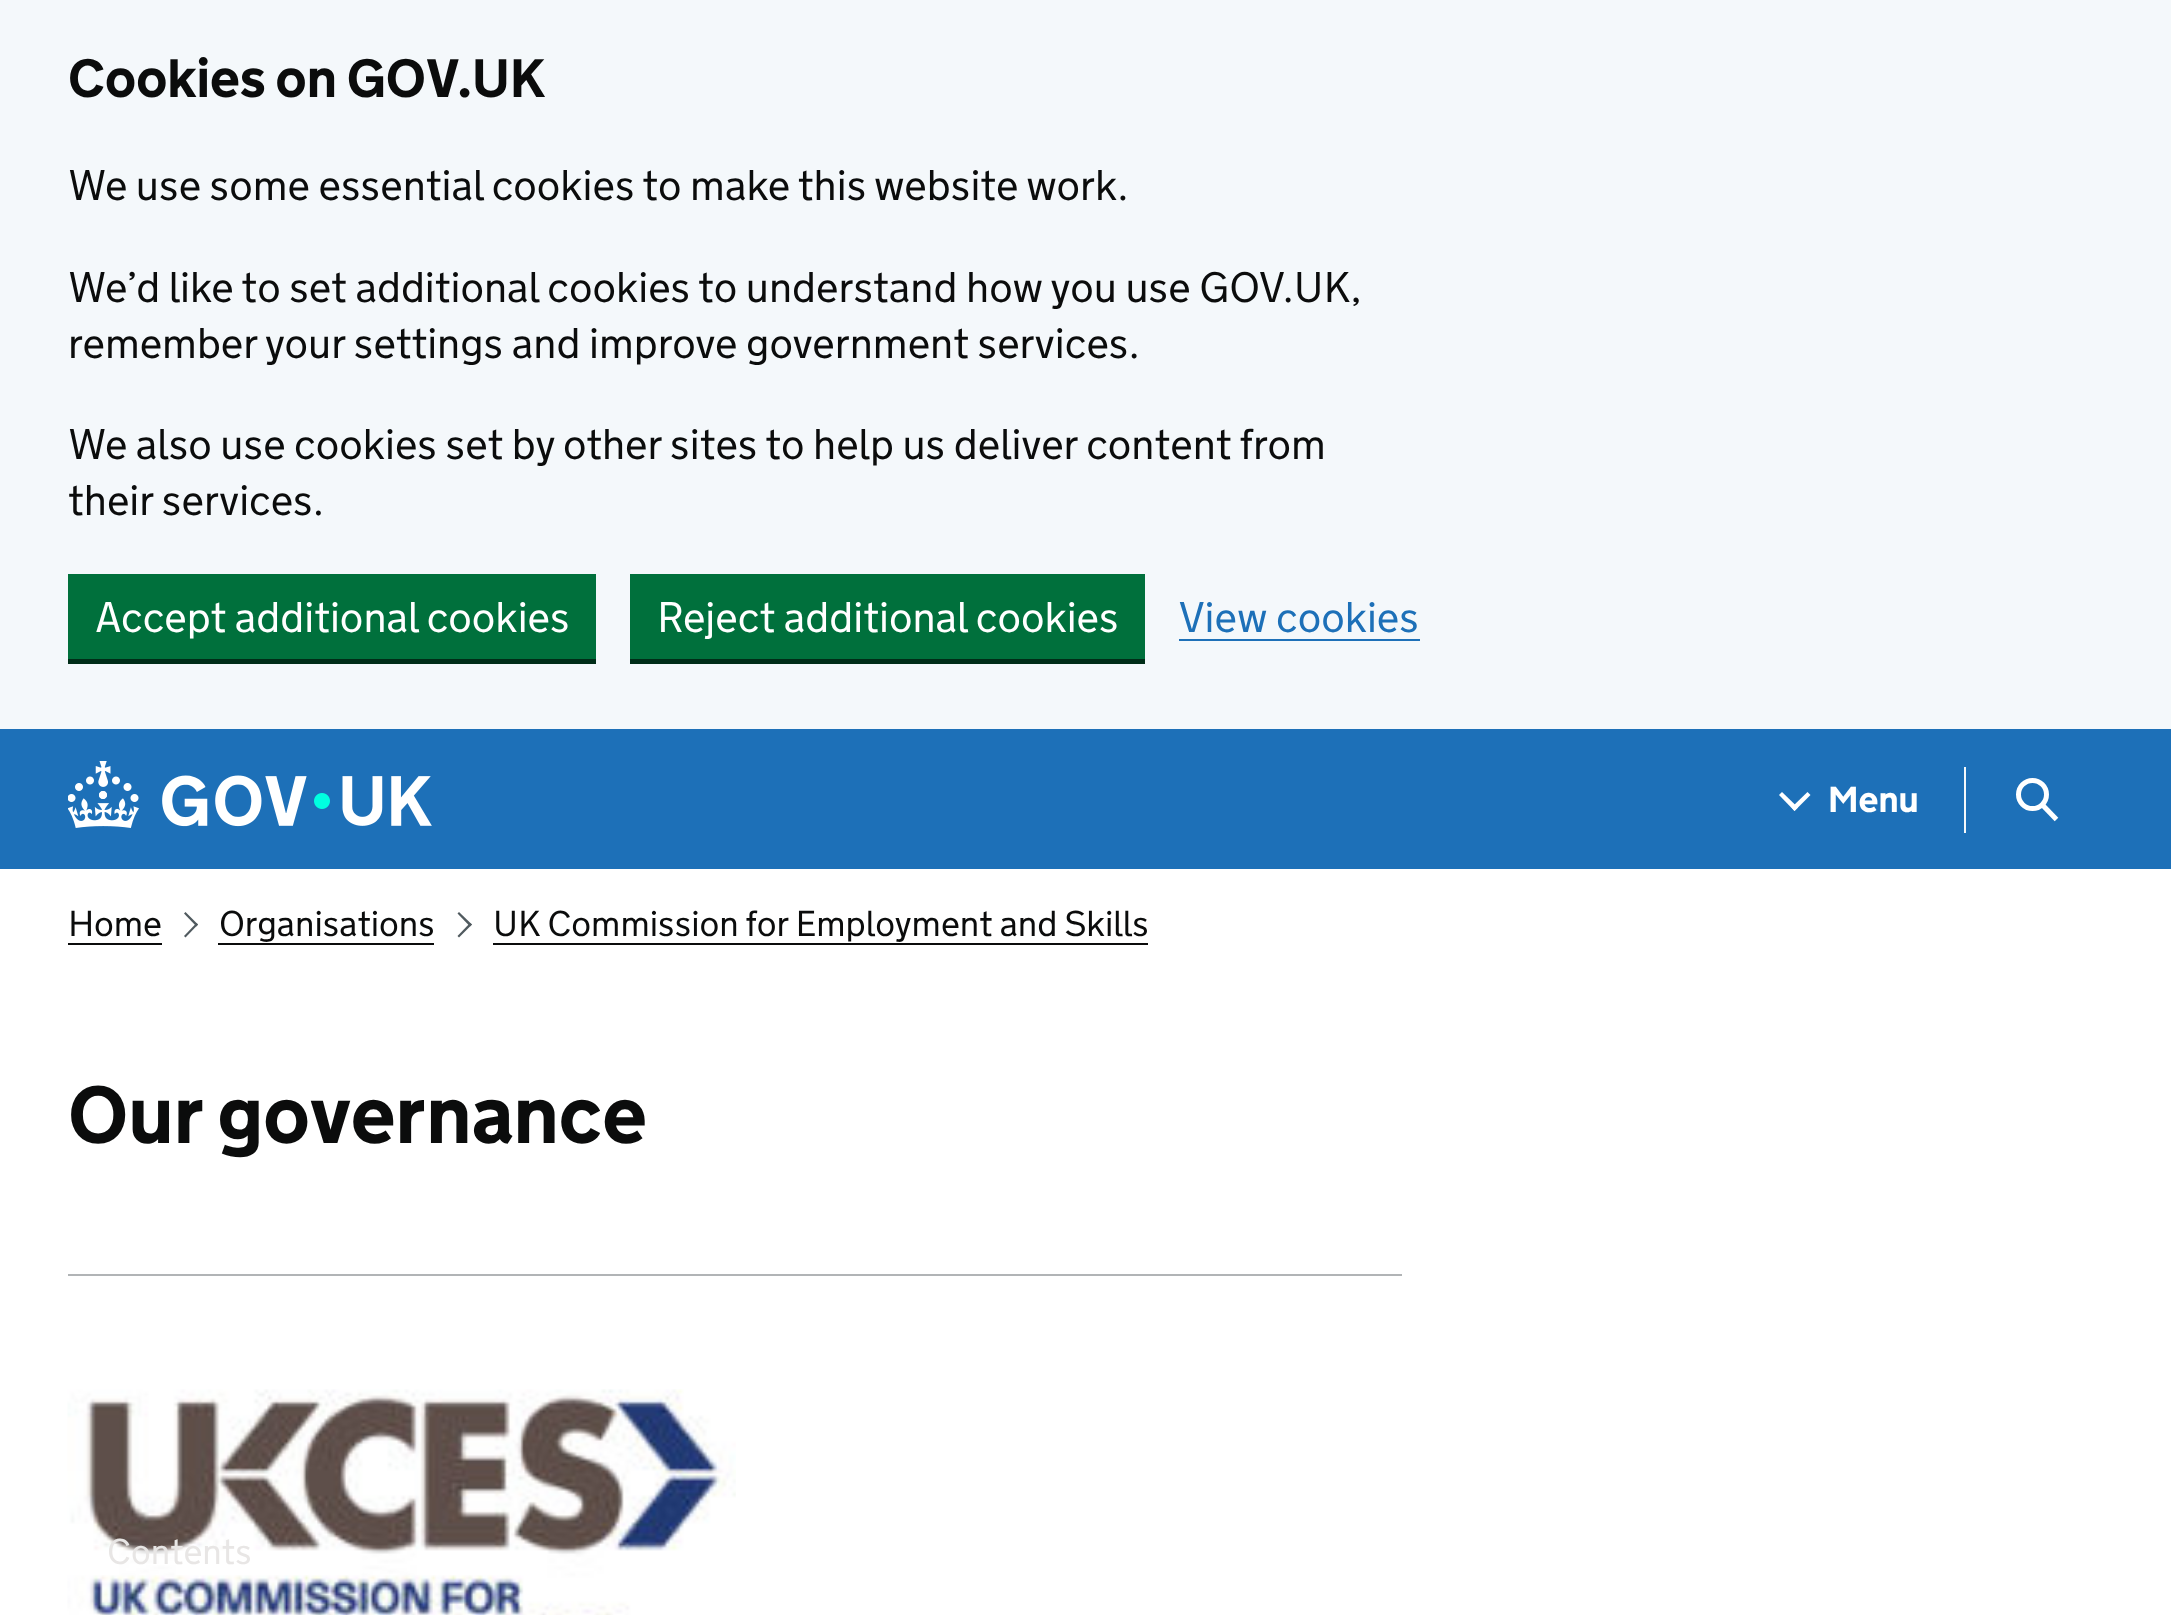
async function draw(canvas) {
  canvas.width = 2171
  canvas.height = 1615
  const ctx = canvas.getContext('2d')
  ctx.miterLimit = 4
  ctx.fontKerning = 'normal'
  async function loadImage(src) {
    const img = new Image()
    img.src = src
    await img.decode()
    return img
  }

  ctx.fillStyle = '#fff'
  ctx.fillRect(0, 0, 2171, 1615)
  ctx.fillStyle = '#f4f8fb'
  ctx.fillRect(0, 0, 2171, 729)
  ctx.font = 'bold 54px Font'
  ctx.fillStyle = '#0b0c0c'
  ctx.fillText('Cookies on GOV.UK', 68, 97)
  ctx.font = '300 42.75px Font'
  ctx.fillText('We use some essential cookies to make this website work.', 68, 200)
  ctx.fillText('We’d like to set additional cookies to understand how you use GOV.UK,', 68, 302)
  ctx.fillText('remember your settings and improve government services.', 68, 358)
  ctx.fillText('We also use cookies set by other sites to help us deliver content from', 68, 459)
  ctx.fillText('their services.', 68, 515)
  ctx.fillStyle = '#002d18'
  ctx.fillRect(68, 659, 528, 5)
  ctx.fillStyle = '#00703c'
  ctx.fillRect(68, 574, 528, 85)
  ctx.fillStyle = '#fff'
  ctx.fillText('Accept additional cookies', 95, 632)
  ctx.fillStyle = '#002d18'
  ctx.fillRect(630, 659, 515, 5)
  ctx.fillStyle = '#00703c'
  ctx.fillRect(630, 574, 515, 85)
  ctx.fillStyle = '#fff'
  ctx.fillText('Reject additional cookies', 657, 632)
  ctx.fillStyle = '#1d70b8'
  ctx.fillText('View cookies', 1179, 632)
  ctx.fillRect(1179, 639, 241, 2)
  ctx.fillRect(0, 729, 2171, 140)
  ctx.drawImage(await loadImage('image0.png'), 68, 761, 364, 67)
  ctx.fillStyle = '#f4f8fb'
  ctx.fillRect(1964, 767, 2, 66)
  ctx.fillStyle = '#fff'
  ctx.beginPath()
  ctx.moveTo(1807.5, 792)
  ctx.lineTo(1810.5, 795)
  ctx.lineTo(1794.5, 811)
  ctx.lineTo(1791.5, 807.5)
  ctx.closePath()
  ctx.fill()
  ctx.beginPath()
  ctx.moveTo(1782, 792)
  ctx.lineTo(1798, 807.5)
  ctx.lineTo(1794.5, 811)
  ctx.lineTo(1779, 795)
  ctx.closePath()
  ctx.fill()
  ctx.font = 'bold 36px Font'
  ctx.fillText('Menu', 1828, 812)
  ctx.beginPath()
  ctx.arc(2032.5, 794.5, 14, 0, 2 * Math.PI)
  ctx.strokeStyle = '#fff'
  ctx.lineWidth = 5
  ctx.stroke()
  ctx.beginPath()
  ctx.moveTo(2042.5, 805)
  ctx.lineTo(2056.5, 819.5)
  ctx.stroke()
  ctx.font = '300 36px Font'
  ctx.fillStyle = '#0b0c0c'
  ctx.fillText('Home', 68, 936)
  ctx.fillRect(68, 943, 94, 2)
  ctx.fillStyle = '#505a5f'
  ctx.beginPath()
  ctx.moveTo(185.5, 912)
  ctx.lineTo(198, 924.5)
  ctx.lineTo(196.5, 926.5)
  ctx.lineTo(184, 913.5)
  ctx.closePath()
  ctx.fill()
  ctx.beginPath()
  ctx.moveTo(196.5, 923)
  ctx.lineTo(198, 924.5)
  ctx.lineTo(185.5, 937.5)
  ctx.lineTo(184, 936)
  ctx.closePath()
  ctx.fill()
  ctx.fillStyle = '#0b0c0c'
  ctx.fillText('Organisations', 219, 936)
  ctx.fillRect(218, 943, 216, 2)
  ctx.fillStyle = '#505a5f'
  ctx.beginPath()
  ctx.moveTo(459, 912)
  ctx.lineTo(472, 924.5)
  ctx.lineTo(470, 926.5)
  ctx.lineTo(457.5, 913.5)
  ctx.closePath()
  ctx.fill()
  ctx.beginPath()
  ctx.moveTo(470, 923)
  ctx.lineTo(472, 924.5)
  ctx.lineTo(459, 937.5)
  ctx.lineTo(457.5, 936)
  ctx.closePath()
  ctx.fill()
  ctx.fillStyle = '#0b0c0c'
  ctx.fillText('UK Commission for Employment and Skills', 493, 936)
  ctx.fillRect(493, 943, 655, 2)
  ctx.font = 'bold 81px Font'
  ctx.fillText('Our governance', 68, 1143)
  ctx.fillStyle = '#b1b4b6'
  ctx.fillRect(68, 1274, 1334, 2)
  ctx.drawImage(await loadImage('image1.png'), 67, 1389, 669, 226)
  ctx.font = '300 36px Font'
  ctx.fillStyle = '#e8e6e5'
  ctx.fillText('Contents', 107, 1564)
}

draw(document.querySelector('canvas'))
